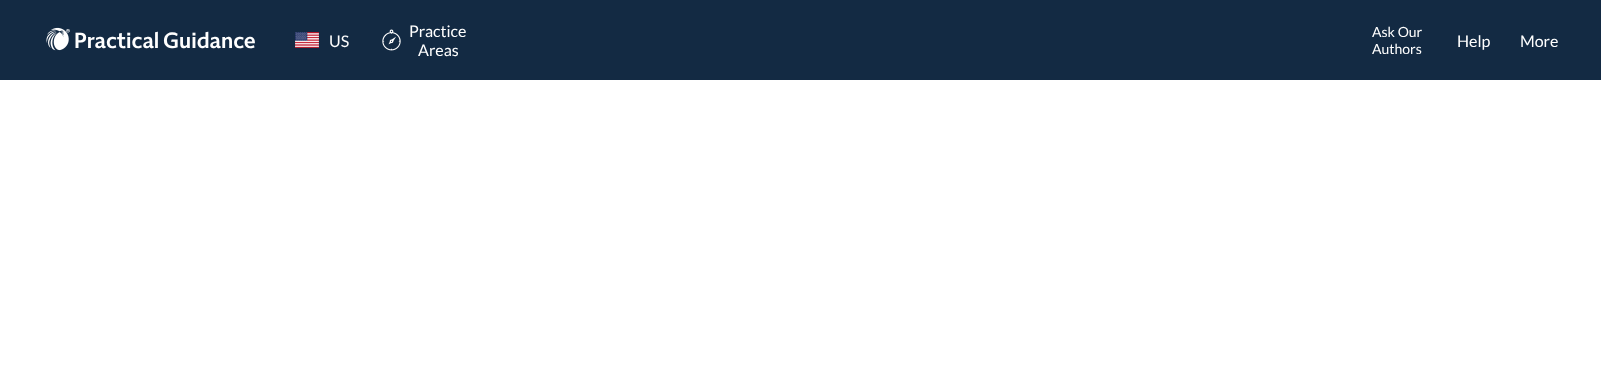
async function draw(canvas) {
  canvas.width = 1601
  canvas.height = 384
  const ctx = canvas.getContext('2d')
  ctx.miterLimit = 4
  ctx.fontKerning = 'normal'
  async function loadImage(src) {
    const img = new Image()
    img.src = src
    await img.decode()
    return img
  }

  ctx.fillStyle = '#fff'
  ctx.fillRect(0, 0, 1601, 384)
  ctx.fillStyle = '#132a43'
  ctx.fillRect(0, 0, 1601, 80)
  ctx.drawImage(await loadImage('image0.png'), 46, 27, 23, 24)
  ctx.font = '600 21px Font'
  ctx.fillStyle = '#fff'
  ctx.fillText('®', 66, 45)
  ctx.fillText('Practical Guidance', 74, 48)
  ctx.drawImage(await loadImage('image1.png'), 295, 32, 24, 16)
  ctx.font = '16px Lato'
  ctx.fillText('US', 329, 47)
  ctx.drawImage(await loadImage('image2.png'), 382, 29, 19, 22)
  ctx.fillText('Practice', 409, 37)
  ctx.fillText('Areas', 418, 56)
  ctx.font = '14px Lato'
  ctx.fillText('Ask Our', 1372, 37)
  ctx.fillText('Authors', 1372, 54)
  ctx.font = '16px Lato'
  ctx.fillText('Help', 1457, 47)
  ctx.fillText('More', 1520, 47)
}

draw(document.querySelector('canvas'))
